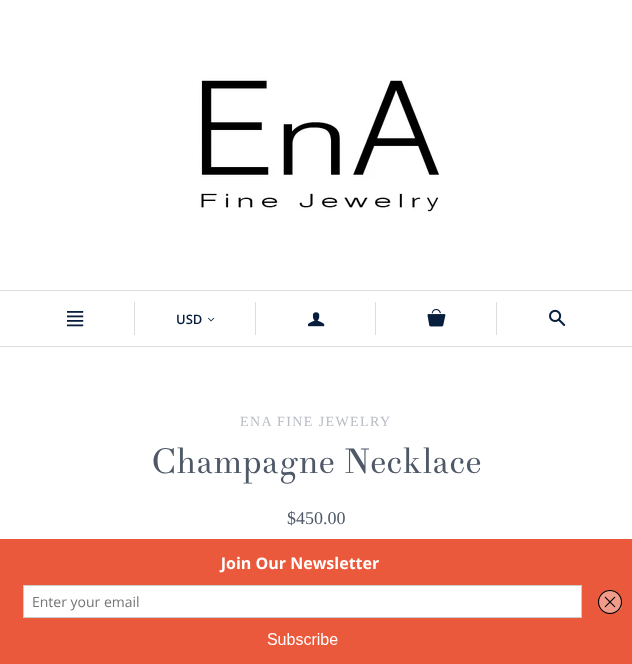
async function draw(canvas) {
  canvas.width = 632
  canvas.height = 664
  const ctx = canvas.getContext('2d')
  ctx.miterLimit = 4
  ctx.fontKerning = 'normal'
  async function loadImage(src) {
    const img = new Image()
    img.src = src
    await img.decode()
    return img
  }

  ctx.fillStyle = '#fff'
  ctx.fillRect(0, 0, 632, 664)
  ctx.drawImage(await loadImage('image0.png'), 199, 77, 240, 135)
  ctx.fillStyle = '#ddd'
  ctx.fillRect(0, 290, 632, 1)
  ctx.fillRect(0, 346, 632, 1)
  ctx.drawImage(await loadImage('image1.png'), 67, 311, 17, 16)
  ctx.fillRect(134, 302, 1, 33)
  ctx.font = '600 13px Open Sans'
  ctx.fillStyle = '#081e3d'
  ctx.fillText('USD', 176, 324)
  ctx.drawImage(await loadImage('image2.png'), 208, 317, 7, 5)
  ctx.fillStyle = '#ddd'
  ctx.fillRect(255, 302, 1, 33)
  ctx.drawImage(await loadImage('image3.png'), 308, 312, 17, 15)
  ctx.fillRect(375, 302, 1, 33)
  ctx.drawImage(await loadImage('image4.png'), 427, 309, 19, 18)
  ctx.fillRect(496, 302, 1, 33)
  ctx.drawImage(await loadImage('image5.png'), 549, 309, 17, 18)
  ctx.letterSpacing = '1.4px'
  ctx.font = '14px Liberation Serif'
  ctx.fillStyle = '#b9bdc4'
  ctx.fillText('ENA FINE JEWELRY', 240, 426)
  ctx.letterSpacing = '0px'
  ctx.font = '35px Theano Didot'
  ctx.fillStyle = '#4e5867'
  ctx.fillText('Champagne Necklace', 151, 473)
  ctx.font = '18px Liberation Serif'
  ctx.fillText('$450.00', 287, 524)
  ctx.drawImage(await loadImage('image6.png'), 0, 539, 632, 125)
}

draw(document.querySelector('canvas'))
